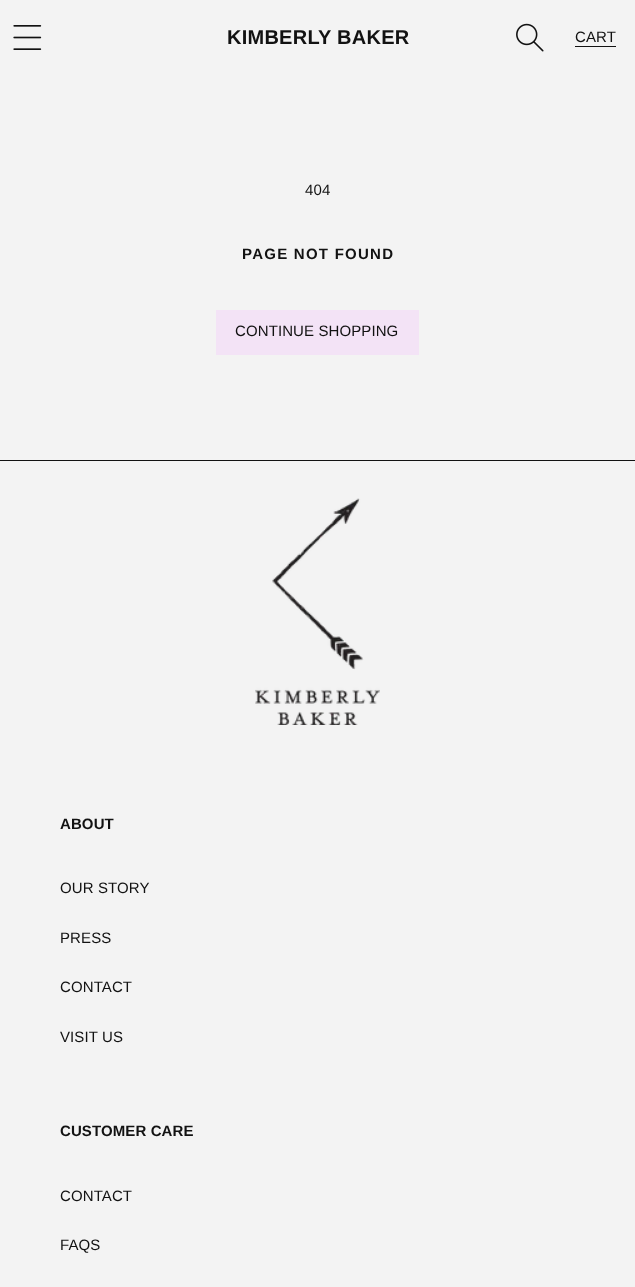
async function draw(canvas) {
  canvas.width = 635
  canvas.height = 1287
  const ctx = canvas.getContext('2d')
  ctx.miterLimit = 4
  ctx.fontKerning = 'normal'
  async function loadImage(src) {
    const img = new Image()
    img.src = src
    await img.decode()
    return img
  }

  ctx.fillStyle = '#f3f3f3'
  ctx.fillRect(0, 0, 635, 1287)
  ctx.drawImage(await loadImage('image0.png'), 13, 25, 29, 25)
  ctx.letterSpacing = '0.25px'
  ctx.font = 'bold 20px Liberation Sans'
  ctx.fillStyle = '#121212'
  ctx.fillText('KIMBERLY BAKER', 227, 44)
  ctx.drawImage(await loadImage('image1.png'), 516, 23, 28, 29)
  ctx.letterSpacing = '0.1px'
  ctx.font = '15px Liberation Sans'
  ctx.fillText('CART', 575, 42)
  ctx.fillRect(575, 46, 41, 1)
  ctx.fillText('404', 305, 195)
  ctx.letterSpacing = '1.25px'
  ctx.font = 'bold 15px Liberation Sans'
  ctx.fillText('PAGE NOT FOUND', 242, 259)
  ctx.fillStyle = '#f3e3f6'
  ctx.fillRect(216, 310, 203, 45)
  ctx.letterSpacing = '0.1px'
  ctx.font = '15px Liberation Sans'
  ctx.fillStyle = '#121212'
  ctx.fillText('CONTINUE SHOPPING', 235, 336)
  ctx.fillRect(0, 460, 635, 1)
  ctx.drawImage(await loadImage('image2.png'), 255, 498, 125, 227)
  ctx.font = 'bold 15px Liberation Sans'
  ctx.fillText('ABOUT', 60, 829)
  ctx.font = '15px Liberation Sans'
  ctx.fillText('OUR STORY', 60, 893)
  ctx.fillText('PRESS', 60, 943)
  ctx.fillText('CONTACT', 60, 992)
  ctx.fillText('VISIT US', 60, 1042)
  ctx.font = 'bold 15px Liberation Sans'
  ctx.fillText('CUSTOMER CARE', 60, 1136)
  ctx.font = '15px Liberation Sans'
  ctx.fillText('CONTACT', 60, 1201)
  ctx.fillText('FAQS', 60, 1250)
}

draw(document.querySelector('canvas'))
